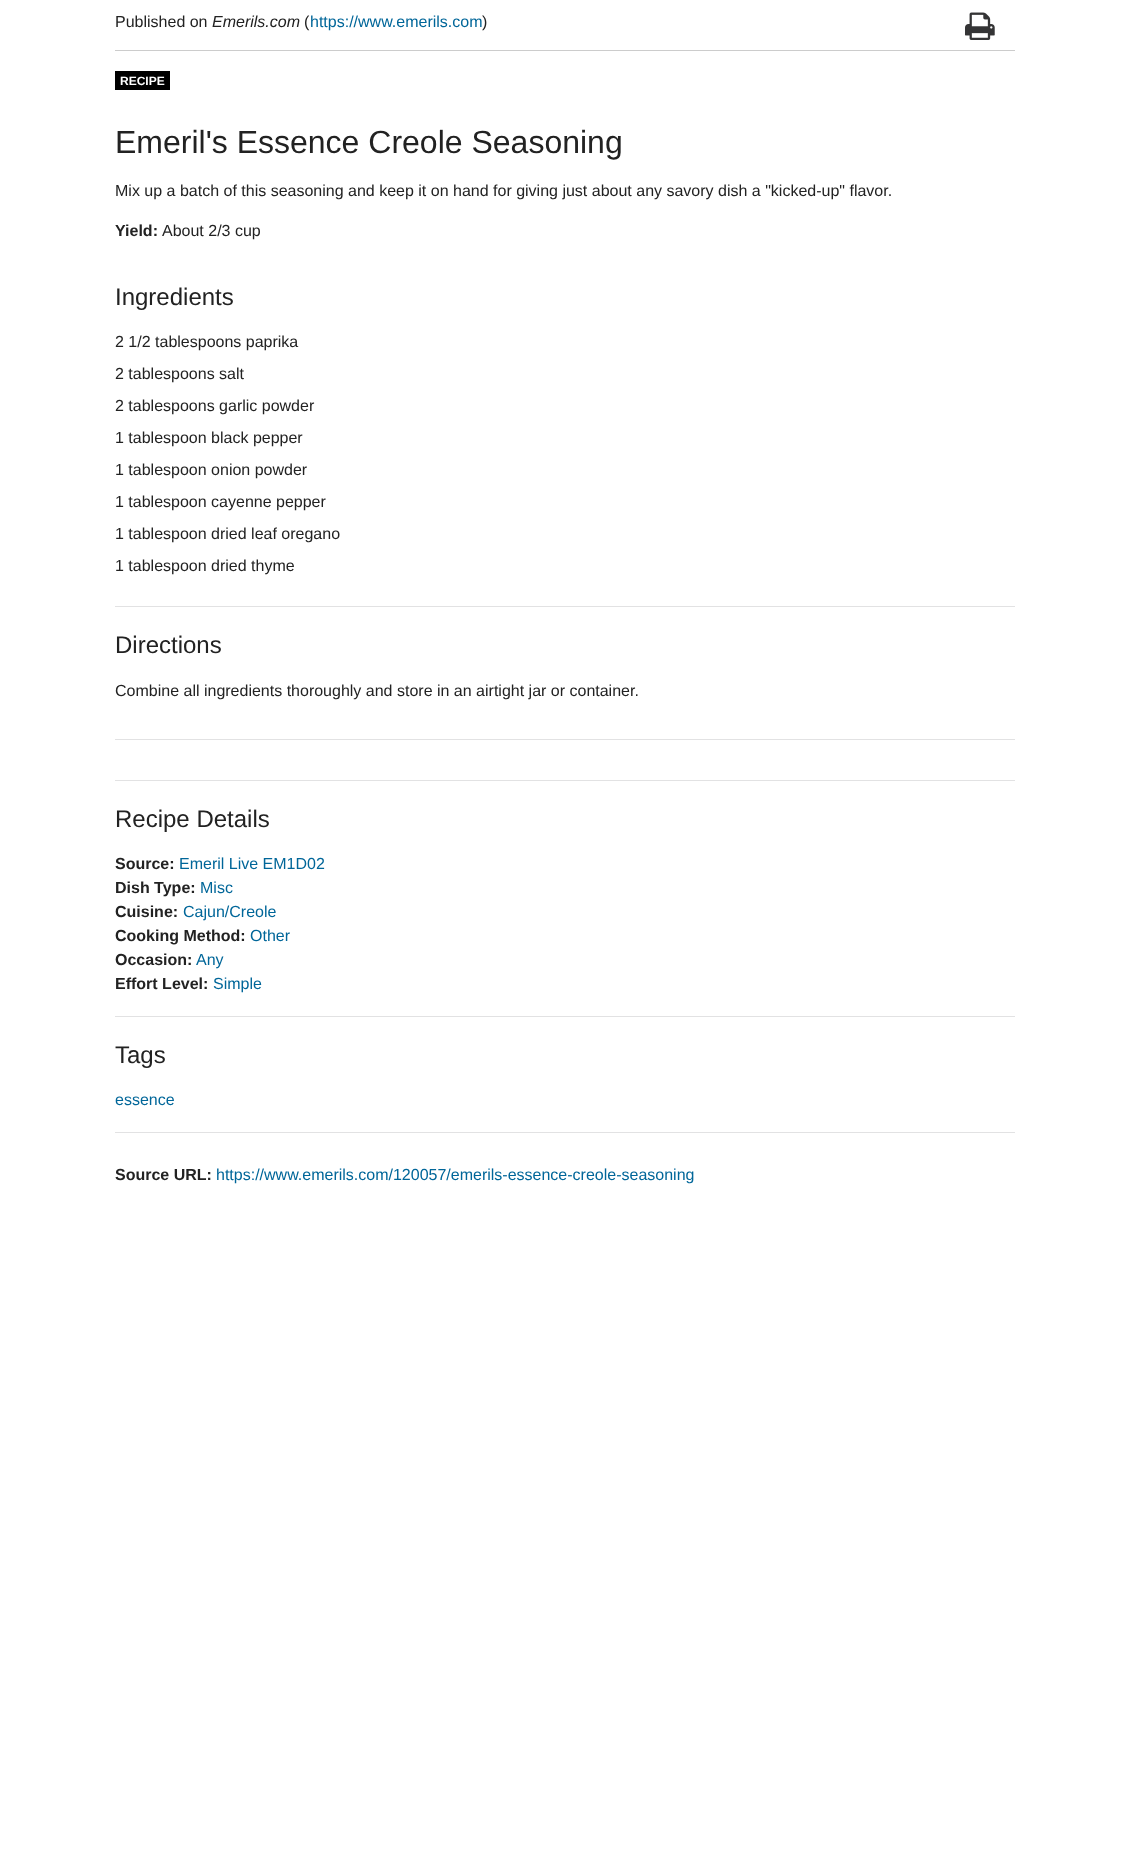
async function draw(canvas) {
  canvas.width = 1130
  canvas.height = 1856
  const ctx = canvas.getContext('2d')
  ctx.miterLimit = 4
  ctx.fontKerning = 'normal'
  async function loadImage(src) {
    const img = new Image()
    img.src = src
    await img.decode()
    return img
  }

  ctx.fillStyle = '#fff'
  ctx.fillRect(0, 0, 1130, 1856)
  ctx.font = '16px Liberation Sans'
  ctx.fillStyle = '#222'
  ctx.fillText('Published on', 115, 27)
  ctx.font = 'italic 16px Liberation Sans'
  ctx.fillText('Emerils.com', 212, 27)
  ctx.font = '16px Liberation Sans'
  ctx.fillText('(', 304, 27)
  ctx.fillStyle = '#069'
  ctx.fillText('https://www.emerils.com', 310, 27)
  ctx.fillStyle = '#222'
  ctx.fillText(')', 482, 27)
  ctx.drawImage(await loadImage('image0.png'), 965, 12, 30, 28)
  ctx.fillStyle = '#ccc'
  ctx.fillRect(115, 50, 900, 1)
  ctx.fillStyle = '#000'
  ctx.fillRect(115, 71, 55, 19)
  ctx.font = 'bold 12px Liberation Sans'
  ctx.fillStyle = '#fff'
  ctx.fillText('RECIPE', 120, 85)
  ctx.font = '32px Liberation Sans'
  ctx.fillStyle = '#222'
  ctx.fillText('Emeril\'s Essence Creole Seasoning', 115, 153)
  ctx.font = '16px Liberation Sans'
  ctx.fillText('Mix up a batch of this seasoning and keep it on hand for giving just about any savory dish a "kicked-up" flavor.', 115, 196)
  ctx.font = 'bold 16px Liberation Sans'
  ctx.fillText('Yield:', 115, 236)
  ctx.font = '16px Liberation Sans'
  ctx.fillText('About 2/3 cup', 162, 236)
  ctx.fillStyle = '#e2e2e3'
  ctx.fillRect(115, 606, 900, 1)
  ctx.font = '24px Liberation Sans'
  ctx.fillStyle = '#222'
  ctx.fillText('Ingredients', 115, 305)
  ctx.font = '16px Liberation Sans'
  ctx.fillText('2 1/2 tablespoons paprika', 115, 347)
  ctx.fillText('2 tablespoons salt', 115, 379)
  ctx.fillText('2 tablespoons garlic powder', 115, 411)
  ctx.fillText('1 tablespoon black pepper', 115, 443)
  ctx.fillText('1 tablespoon onion powder', 115, 475)
  ctx.fillText('1 tablespoon cayenne pepper', 115, 507)
  ctx.fillText('1 tablespoon dried leaf oregano', 115, 539)
  ctx.fillText('1 tablespoon dried thyme', 115, 571)
  ctx.fillStyle = '#e2e2e3'
  ctx.fillRect(115, 739, 900, 1)
  ctx.font = '24px Liberation Sans'
  ctx.fillStyle = '#222'
  ctx.fillText('Directions', 115, 653)
  ctx.font = '16px Liberation Sans'
  ctx.fillText('Combine all ingredients thoroughly and store in an airtight jar or container.', 115, 696)
  ctx.fillStyle = '#e2e2e3'
  ctx.fillRect(115, 780, 900, 1)
  ctx.fillRect(115, 1016, 900, 1)
  ctx.font = '24px Liberation Sans'
  ctx.fillStyle = '#222'
  ctx.fillText('Recipe Details', 115, 827)
  ctx.font = 'bold 16px Liberation Sans'
  ctx.fillText('Source:', 115, 869)
  ctx.font = '16px Liberation Sans'
  ctx.fillStyle = '#069'
  ctx.fillText('Emeril Live EM1D02', 179, 869)
  ctx.font = 'bold 16px Liberation Sans'
  ctx.fillStyle = '#222'
  ctx.fillText('Dish Type:', 115, 893)
  ctx.font = '16px Liberation Sans'
  ctx.fillStyle = '#069'
  ctx.fillText('Misc', 200, 893)
  ctx.font = 'bold 16px Liberation Sans'
  ctx.fillStyle = '#222'
  ctx.fillText('Cuisine:', 115, 917)
  ctx.font = '16px Liberation Sans'
  ctx.fillStyle = '#069'
  ctx.fillText('Cajun/Creole', 183, 917)
  ctx.font = 'bold 16px Liberation Sans'
  ctx.fillStyle = '#222'
  ctx.fillText('Cooking Method:', 115, 941)
  ctx.font = '16px Liberation Sans'
  ctx.fillStyle = '#069'
  ctx.fillText('Other', 250, 941)
  ctx.font = 'bold 16px Liberation Sans'
  ctx.fillStyle = '#222'
  ctx.fillText('Occasion:', 115, 965)
  ctx.font = '16px Liberation Sans'
  ctx.fillStyle = '#069'
  ctx.fillText('Any', 196, 965)
  ctx.font = 'bold 16px Liberation Sans'
  ctx.fillStyle = '#222'
  ctx.fillText('Effort Level:', 115, 989)
  ctx.font = '16px Liberation Sans'
  ctx.fillStyle = '#069'
  ctx.fillText('Simple', 213, 989)
  ctx.fillStyle = '#e2e2e3'
  ctx.fillRect(115, 1132, 900, 1)
  ctx.font = '24px Liberation Sans'
  ctx.fillStyle = '#222'
  ctx.fillText('Tags', 115, 1063)
  ctx.font = '16px Liberation Sans'
  ctx.fillStyle = '#069'
  ctx.fillText('essence', 115, 1105)
  ctx.font = 'bold 16px Liberation Sans'
  ctx.fillStyle = '#222'
  ctx.fillText('Source URL:', 115, 1180)
  ctx.font = '16px Liberation Sans'
  ctx.fillStyle = '#069'
  ctx.fillText('https://www.emerils.com/120057/emerils-essence-creole-seasoning', 216, 1180)
}

draw(document.querySelector('canvas'))
